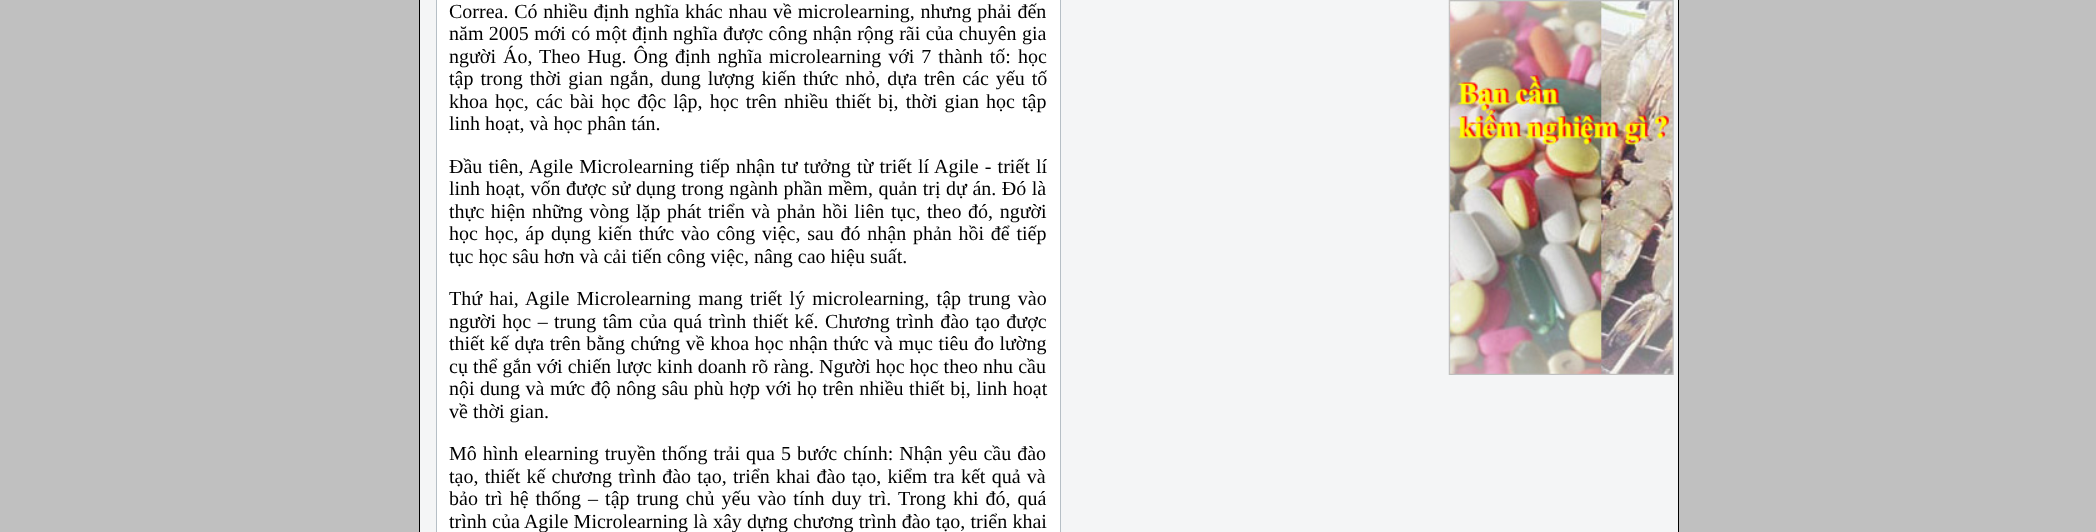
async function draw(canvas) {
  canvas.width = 2096
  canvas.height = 532
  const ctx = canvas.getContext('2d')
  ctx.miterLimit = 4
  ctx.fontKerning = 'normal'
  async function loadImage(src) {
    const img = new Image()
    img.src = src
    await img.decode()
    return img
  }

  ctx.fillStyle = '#c0c0c0'
  ctx.fillRect(0, 0, 2096, 532)
  ctx.fillStyle = '#f4f5f6'
  ctx.fillRect(420, 0, 1258, 532)
  ctx.fillStyle = '#000'
  ctx.fillRect(1678, 0, 1, 532)
  ctx.fillRect(419, 0, 1, 532)
  ctx.fillStyle = '#fff'
  ctx.fillRect(437, 0, 623, 532)
  ctx.fillStyle = '#b6bfc6'
  ctx.fillRect(1060, 0, 1, 532)
  ctx.fillRect(436, 0, 1, 532)
  ctx.wordSpacing = '0.75px'
  ctx.font = '20px Liberation Serif'
  ctx.fillStyle = '#000'
  ctx.fillText('Correa. Có nhiều định nghĩa khác nhau về microlearning, nhưng phải đến', 449, 18)
  ctx.wordSpacing = '0.4px'
  ctx.fillText('năm 2005 mới có một định nghĩa được công nhận rộng rãi của chuyên gia', 449, 40)
  ctx.wordSpacing = '2px'
  ctx.fillText('người Áo, Theo Hug. Ông định nghĩa microlearning với 7 thành tố: học', 449, 63)
  ctx.fillText('tập trong thời gian ngắn, dung lượng kiến thức nhỏ, dựa trên các yếu tố', 449, 85)
  ctx.wordSpacing = '2.1px'
  ctx.fillText('khoa học, các bài học độc lập, học trên nhiều thiết bị, thời gian học tập', 449, 108)
  ctx.wordSpacing = '0px'
  ctx.fillText('linh hoạt, và học phân tán.', 449, 130)
  ctx.wordSpacing = '1.2px'
  ctx.fillText('Đầu tiên, Agile Microlearning tiếp nhận tư tưởng từ triết lí Agile - triết lí', 449, 173)
  ctx.wordSpacing = '0.5px'
  ctx.fillText('linh hoạt, vốn được sử dụng trong ngành phần mềm, quản trị dự án. Đó là', 449, 195)
  ctx.wordSpacing = '1.6px'
  ctx.fillText('thực hiện những vòng lặp phát triển và phản hồi liên tục, theo đó, người', 449, 218)
  ctx.wordSpacing = '1.75px'
  ctx.fillText('học học, áp dụng kiến thức vào công việc, sau đó nhận phản hồi để tiếp', 449, 240)
  ctx.wordSpacing = '0px'
  ctx.fillText('tục học sâu hơn và cải tiến công việc, nâng cao hiệu suất.', 449, 263)
  ctx.wordSpacing = '2.25px'
  ctx.fillText('Thứ hai, Agile Microlearning mang triết lý microlearning, tập trung vào', 449, 305)
  ctx.wordSpacing = '1.4px'
  ctx.fillText('người học – trung tâm của quá trình thiết kế. Chương trình đào tạo được', 449, 328)
  ctx.wordSpacing = '0.5px'
  ctx.fillText('thiết kế dựa trên bằng chứng về khoa học nhận thức và mục tiêu đo lường', 449, 350)
  ctx.wordSpacing = '0.1px'
  ctx.fillText('cụ thể gắn với chiến lược kinh doanh rõ ràng. Người học học theo nhu cầu', 449, 373)
  ctx.wordSpacing = '0.5px'
  ctx.fillText('nội dung và mức độ nông sâu phù hợp với họ trên nhiều thiết bị, linh hoạt', 449, 395)
  ctx.wordSpacing = '0px'
  ctx.fillText('về thời gian.', 449, 418)
  ctx.wordSpacing = '1px'
  ctx.fillText('Mô hình elearning truyền thống trải qua 5 bước chính: Nhận yêu cầu đào', 449, 460)
  ctx.wordSpacing = '1.25px'
  ctx.fillText('tạo, thiết kế chương trình đào tạo, triển khai đào tạo, kiểm tra kết quả và', 449, 483)
  ctx.wordSpacing = '2px'
  ctx.fillText('bảo trì hệ thống – tập trung chủ yếu vào tính duy trì. Trong khi đó, quá', 449, 505)
  ctx.wordSpacing = '0.25px'
  ctx.fillText('trình của Agile Microlearning là xây dựng chương trình đào tạo, triển khai', 449, 528)
  ctx.drawImage(await loadImage('image0.png'), 1448, 0, 226, 375)
}

draw(document.querySelector('canvas'))
